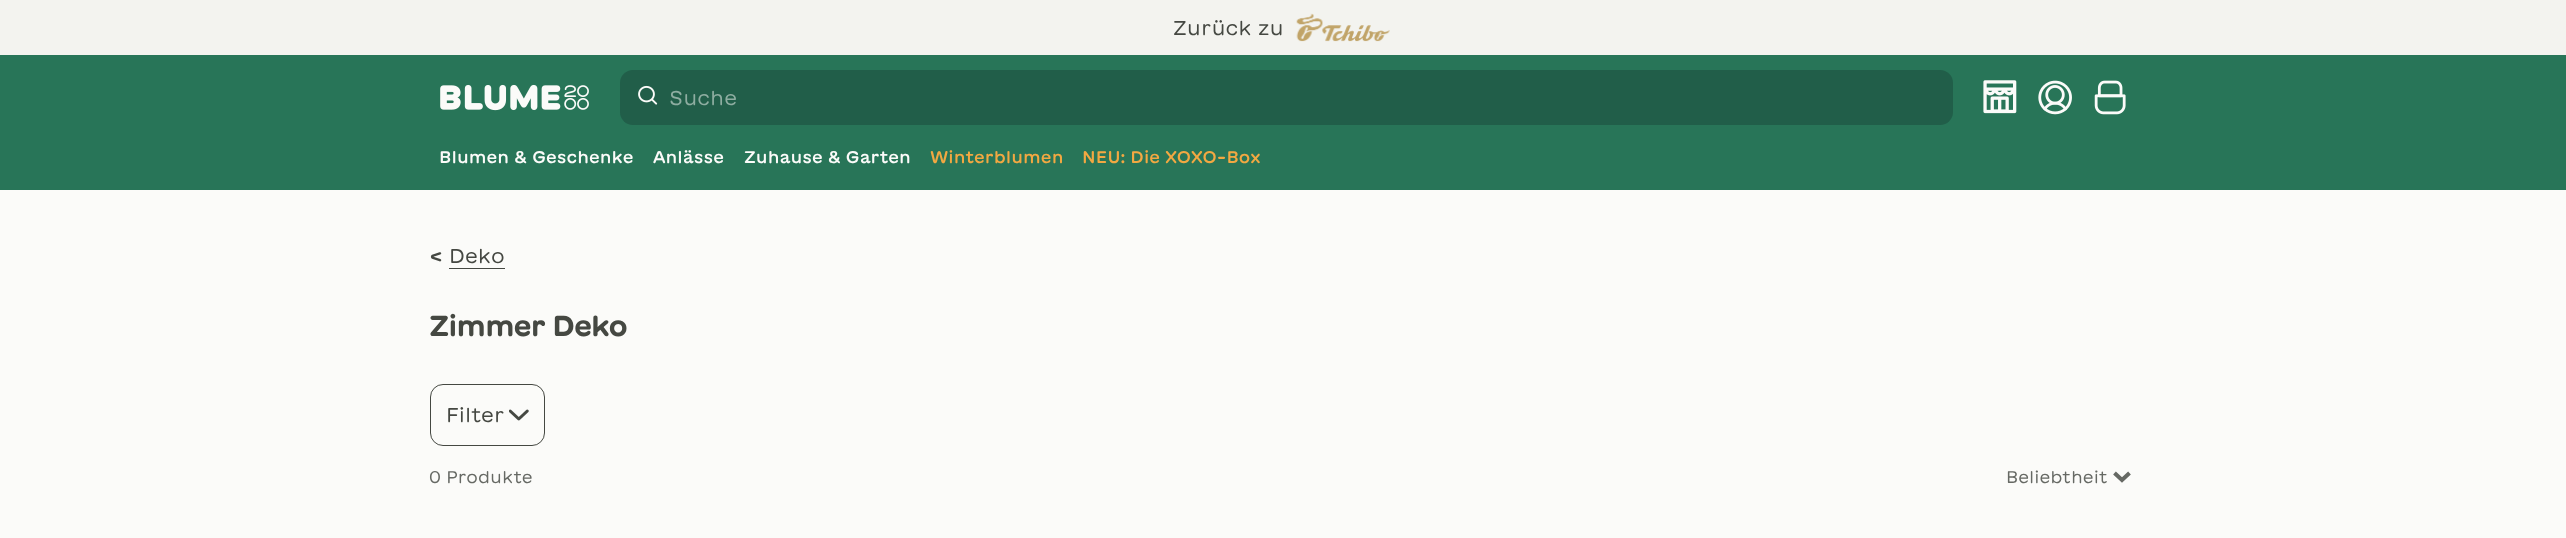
async function draw(canvas) {
  canvas.width = 2566;
  canvas.height = 538;
  const ctx = canvas.getContext('2d');
  ctx.miterLimit = 4;
  ctx.fontKerning = 'normal';
  function label(s, x, y, font, color) {
    ctx.font = font;
    ctx.fillStyle = color;
    ctx.fillText(s, x, y);
  }
  function rect(x, y, w, h, color) {
    ctx.fillStyle = color;
    ctx.fillRect(x, y, w, h);
  }
  function roundedRect(x, y, w, h, r, color) {
    ctx.fillStyle = color;
    ctx.beginPath();
    ctx.roundRect(x, y, w, h, r);
    ctx.fill();
  }
  async function image(src, x, y, w, h) {
    const img = new Image();
    img.src = src;
    await img.decode();
    ctx.drawImage(img, x, y, w, h);
  }
  let path;

  rect(0, 0, 2566, 538, '#fbfbf9');
  rect(0, 0, 2566, 55, '#f3f3ef');
  label('Zurück zu', 1173, 35, '20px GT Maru', '#454842');
  await image('assets/img1.png', 1296, 13, 94, 29);
  rect(0, 55, 2566, 135, '#287558');
  await image('assets/img2.png', 440, 84, 149, 27);
  roundedRect(620, 70, 1333, 55, 13, '#215e49');
  await image('assets/img3.png', 638, 85, 20, 20);
  label('Suche', 669, 105, '20px GT Maru', '#8eada1');
  await image('assets/img4.png', 1983, 80, 34, 34);
  await image('assets/img5.png', 2038, 80, 34, 35);
  await image('assets/img6.png', 2094, 80, 32, 35);
  label('Blumen & Geschenke', 439, 163, '500 16.9px GT Maru', '#fbfbf9');
  label('Anlässe', 653, 163, '500 16.9px GT Maru', '#fbfbf9');
  label('Zuhause & Garten', 744, 163, '500 16.9px GT Maru', '#fbfbf9');
  label('Winterblumen', 930, 163, '500 16.9px GT Maru', '#f2a842');
  label('NEU: Die XOXO-Box', 1082, 163, '500 16.9px GT Maru', '#f2a842');
  label('<', 429, 263, 'bold 20px GT Maru', '#454842');
  label('Deko', 449, 263, '20px GT Maru', '#454842');
  rect(449, 268, 56, 1, '#454842');
  ctx.letterSpacing = '-1.25px';
  label('Zimmer Deko', 429, 336, 'bold 28.75px GT Maru', '#454842');
  ctx.beginPath();
  ctx.roundRect(430.5, 384.5, 114, 61, 12.5);
  ctx.strokeStyle = '#454842';
  ctx.stroke();
  ctx.letterSpacing = '0px';
  label('Filter', 446, 422, '20px GT Maru', '#454842');
  await image('assets/img7.png', 509, 409, 20, 12);
  label('0 Produkte', 429, 483, '16.9px GT Maru', '#666964');
  label('Beliebtheit', 2006, 483, '16.9px GT Maru', '#666964');
  path = new Path2D('M2129.5 473L2122 480L2114.5 473');
  ctx.strokeStyle = '#666964';
  ctx.lineWidth = 4;
  ctx.stroke(path);
}

draw(document.querySelector('canvas'));
